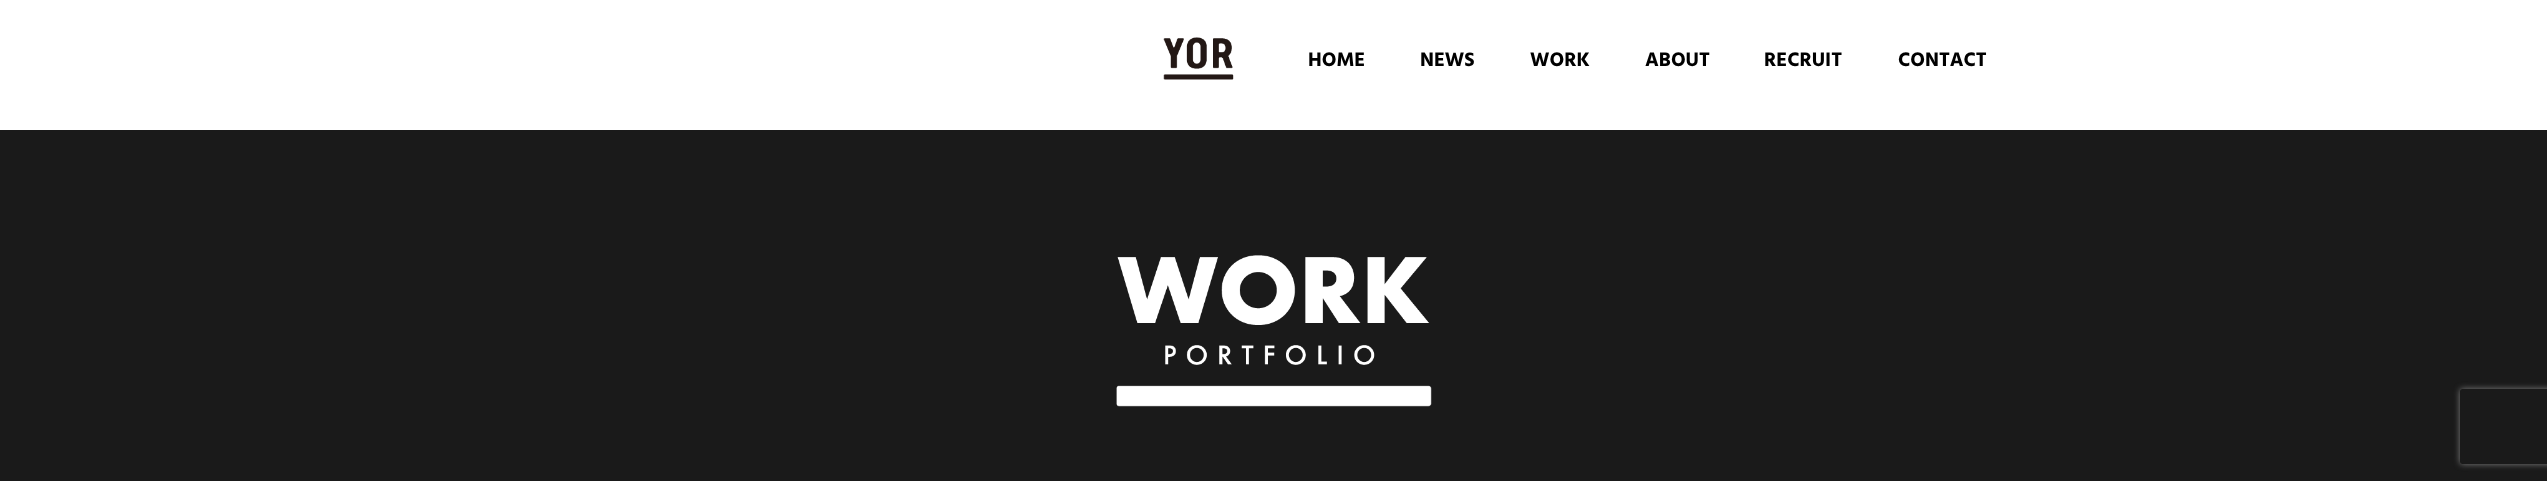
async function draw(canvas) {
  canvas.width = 2547;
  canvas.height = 481;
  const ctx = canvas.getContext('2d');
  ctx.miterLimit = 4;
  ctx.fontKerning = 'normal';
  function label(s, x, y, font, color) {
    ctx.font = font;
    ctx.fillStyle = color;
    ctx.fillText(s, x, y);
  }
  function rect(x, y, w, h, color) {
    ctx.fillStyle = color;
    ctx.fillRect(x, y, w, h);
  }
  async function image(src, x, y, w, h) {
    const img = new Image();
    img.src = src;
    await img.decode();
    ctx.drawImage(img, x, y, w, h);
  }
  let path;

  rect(0, 0, 2547, 481, '#fff');
  await image('assets/img1.png', 1163, 37, 71, 43);
  label('HOME', 1308, 66, 'bold 20px Hind Guntur', '#000');
  label('NEWS', 1420, 66, 'bold 20px Hind Guntur', '#000');
  label('WORK', 1530, 66, 'bold 20px Hind Guntur', '#000');
  label('ABOUT', 1645, 66, 'bold 20px Hind Guntur', '#000');
  label('RECRUIT', 1764, 66, 'bold 20px Hind Guntur', '#000');
  label('CONTACT', 1898, 66, 'bold 20px Hind Guntur', '#000');
  rect(0, 130, 2547, 351, '#1a1a1a');
  await image('assets/img2.png', 1116, 255, 316, 152);
  ctx.save();
  path = new Path2D('M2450 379H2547V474H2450ZM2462.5 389H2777.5C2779 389 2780 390 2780 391.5V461.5C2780 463 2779 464 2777.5 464H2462.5C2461 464 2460 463 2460 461.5V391.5C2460 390 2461 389 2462.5 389Z');
  ctx.clip(path, 'evenodd');
  ctx.fillStyle = '#808080';
  ctx.filter = 'blur(3px)';
  ctx.beginPath();
  ctx.roundRect(2460, 389, 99, 75, 2.5);
  ctx.fill();
  ctx.filter = 'none';
  ctx.restore();
}

draw(document.querySelector('canvas'));
